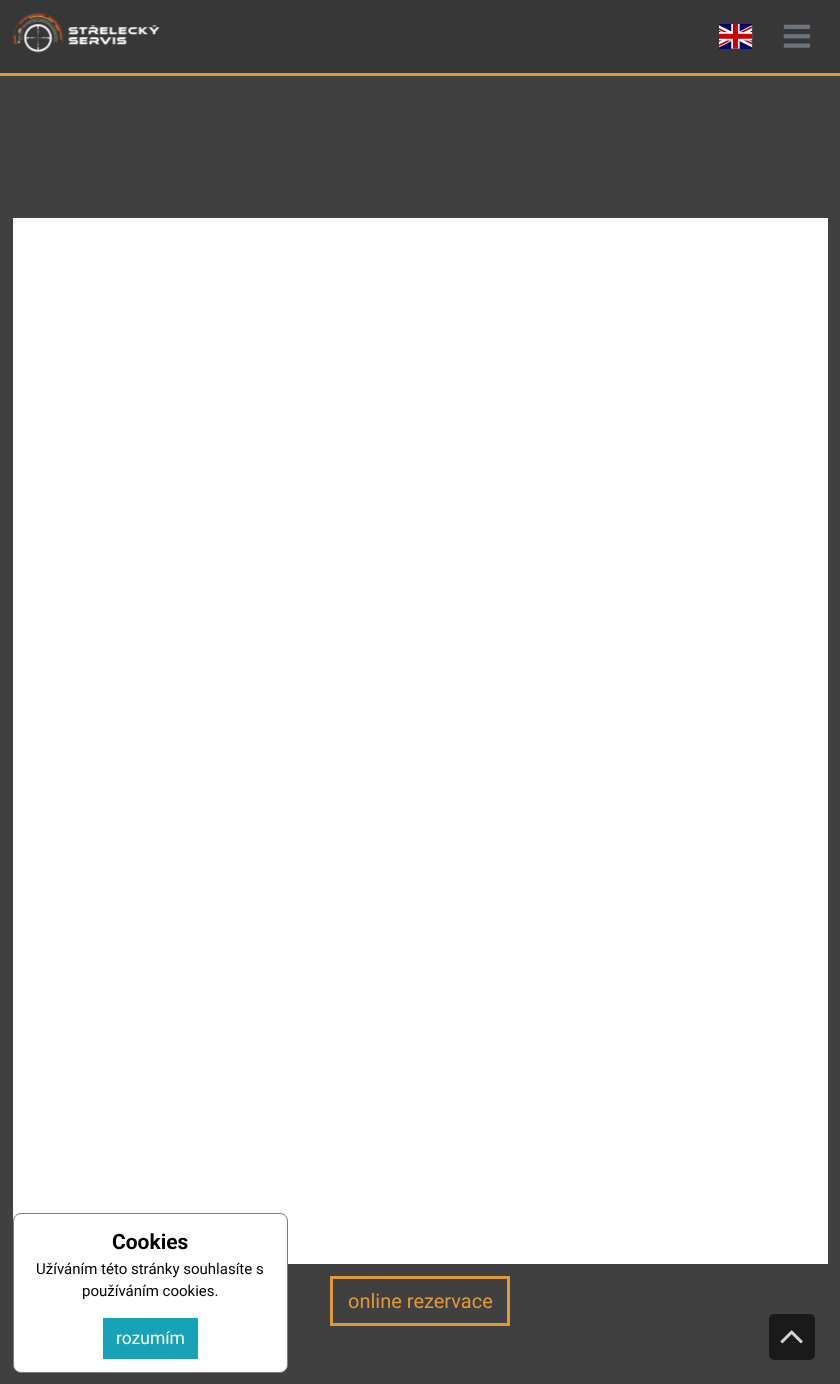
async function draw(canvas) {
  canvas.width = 840;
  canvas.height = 1384;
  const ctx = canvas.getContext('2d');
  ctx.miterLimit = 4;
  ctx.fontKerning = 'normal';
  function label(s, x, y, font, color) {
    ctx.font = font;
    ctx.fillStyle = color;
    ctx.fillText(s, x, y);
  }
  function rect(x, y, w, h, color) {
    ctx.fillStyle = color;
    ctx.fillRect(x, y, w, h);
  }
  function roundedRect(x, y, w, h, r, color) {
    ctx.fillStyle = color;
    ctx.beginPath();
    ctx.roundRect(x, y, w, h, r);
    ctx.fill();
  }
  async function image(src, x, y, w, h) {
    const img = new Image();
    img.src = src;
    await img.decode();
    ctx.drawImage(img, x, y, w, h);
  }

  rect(0, 0, 840, 1384, '#404040');
  rect(0, 0, 840, 73, '#373737');
  rect(0, 73, 840, 3, '#df9a37');
  await image('assets/img1.png', 12, 12, 148, 41);
  await image('assets/img2.png', 719, 24, 34, 25);
  await image('assets/img3.png', 783, 24, 27, 24);
  rect(13, 218, 815, 1046, '#fff');
  ctx.beginPath();
  ctx.roundRect(13.5, 1213.5, 274, 159, 7.5);
  ctx.fill();
  ctx.strokeStyle = '#7c7c7c';
  ctx.stroke();
  label('Cookies', 112, 1249, 'bold 21px Roboto', '#000');
  label('Užíváním této stránky souhlasíte s', 36, 1274, '15px Roboto', '#000');
  label('používáním cookies.', 82, 1296, '15px Roboto', '#000');
  rect(103, 1318, 95, 41, '#17a2b8');
  label('rozumím', 116, 1344, '17.5px Roboto', '#fff');
  roundedRect(769, 1314, 46, 46, 5, '#1a1a1a');
  await image('assets/img4.png', 780, 1330, 23, 14);
  ctx.strokeStyle = '#df9a37';
  ctx.lineWidth = 3;
  ctx.strokeRect(331.5, 1277.5, 177, 47);
  label('online rezervace', 348, 1308, '20px Roboto', '#df9a37');
}

draw(document.querySelector('canvas'));
